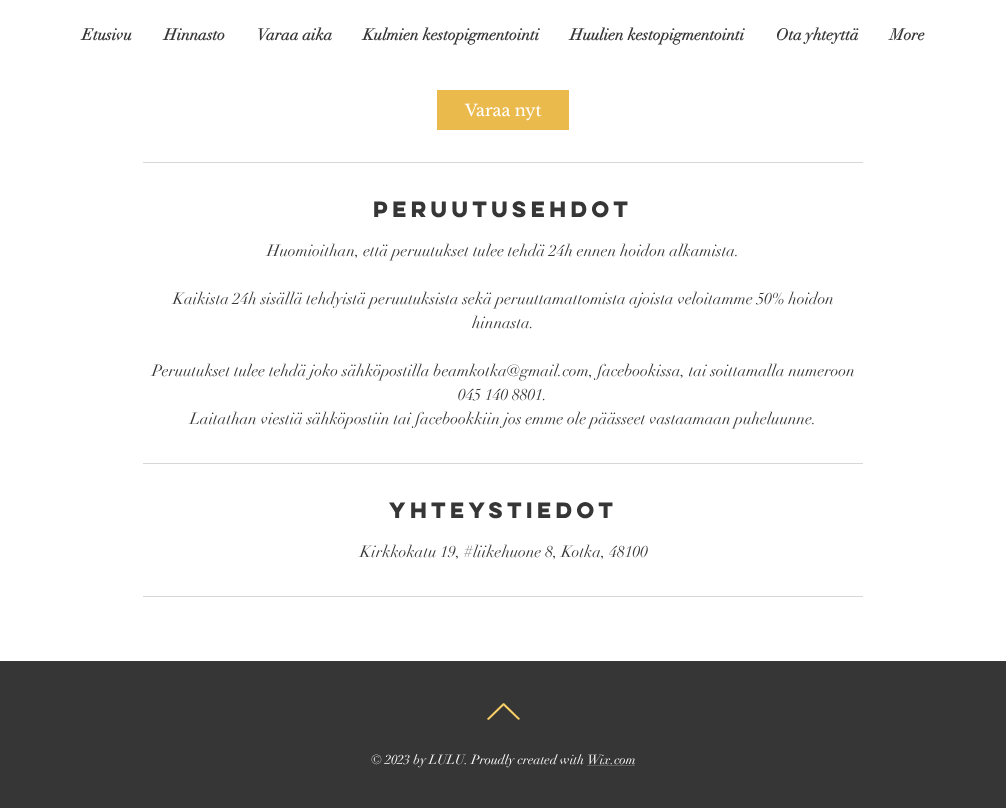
async function draw(canvas) {
  canvas.width = 1006;
  canvas.height = 808;
  const ctx = canvas.getContext('2d');
  ctx.miterLimit = 4;
  ctx.fontKerning = 'normal';
  function label(s, x, y, font, color) {
    ctx.font = font;
    ctx.fillStyle = color;
    ctx.fillText(s, x, y);
  }
  function rect(x, y, w, h, color) {
    ctx.fillStyle = color;
    ctx.fillRect(x, y, w, h);
  }
  async function image(src, x, y, w, h) {
    const img = new Image();
    img.src = src;
    await img.decode();
    ctx.drawImage(img, x, y, w, h);
  }

  rect(0, 0, 1006, 808, '#fff');
  label('Etusivu', 82, 40, 'bold 16px didot', '#363636');
  label('Hinnasto', 164, 40, 'bold 16px didot', '#363636');
  label('Varaa aika', 257, 40, 'bold 16px didot', '#363636');
  label('Kulmien kestopigmentointi', 363, 40, 'bold 16px didot', '#363636');
  label('Huulien kestopigmentointi', 570, 40, 'bold 16px didot', '#363636');
  label('Ota yhteyttä', 776, 40, 'bold 16px didot', '#363636');
  label('More', 890, 40, 'bold 16px didot', '#363636');
  rect(437, 90, 132, 40, '#ebba4d');
  label('Varaa nyt', 465, 116, '16px Libre Baskerville', '#fff');
  rect(143, 162, 720, 1, '#d7d7d7');
  label('Peruutusehdot', 373, 217, 'bold 20px "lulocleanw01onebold"', '#363636');
  label('Huomioithan, että peruutukset tulee tehdä 24h ennen hoidon alkamista.', 267, 256, '16px didot', '#363636');
  label('Kaikista 24h sisällä tehdyistä peruutuksista sekä peruuttamattomista ajoista veloitamme 50% hoidon', 173, 304, '16px didot', '#363636');
  label('hinnasta.', 472, 328, '16px didot', '#363636');
  label('Peruutukset tulee tehdä joko sähköpostilla beamkotka@gmail.com, facebookissa, tai soittamalla numeroon', 152, 376, '16px didot', '#363636');
  label('045 140 8801.', 458, 400, '16px didot', '#363636');
  label('Laitathan viestiä sähköpostiin tai facebookkiin jos emme ole päässeet vastaamaan puheluunne.', 190, 424, '16px didot', '#363636');
  rect(143, 463, 720, 1, '#d7d7d7');
  label('Yhteystiedot', 389, 518, 'bold 20px "lulocleanw01onebold"', '#363636');
  label('Kirkkokatu 19, #liikehuone 8, Kotka, 48100', 360, 557, '16px didot', '#363636');
  rect(143, 596, 720, 1, '#d7d7d7');
  rect(0, 661, 1006, 147, '#363636');
  await image('assets/img1.png', 487, 703, 33, 17);
  label('© 2023 by LULU. Proudly created with Wix.com', 371, 764, '13px didot', '#fff');
  rect(587, 765, 48, 1, '#605e5e');
}

draw(document.querySelector('canvas'));
